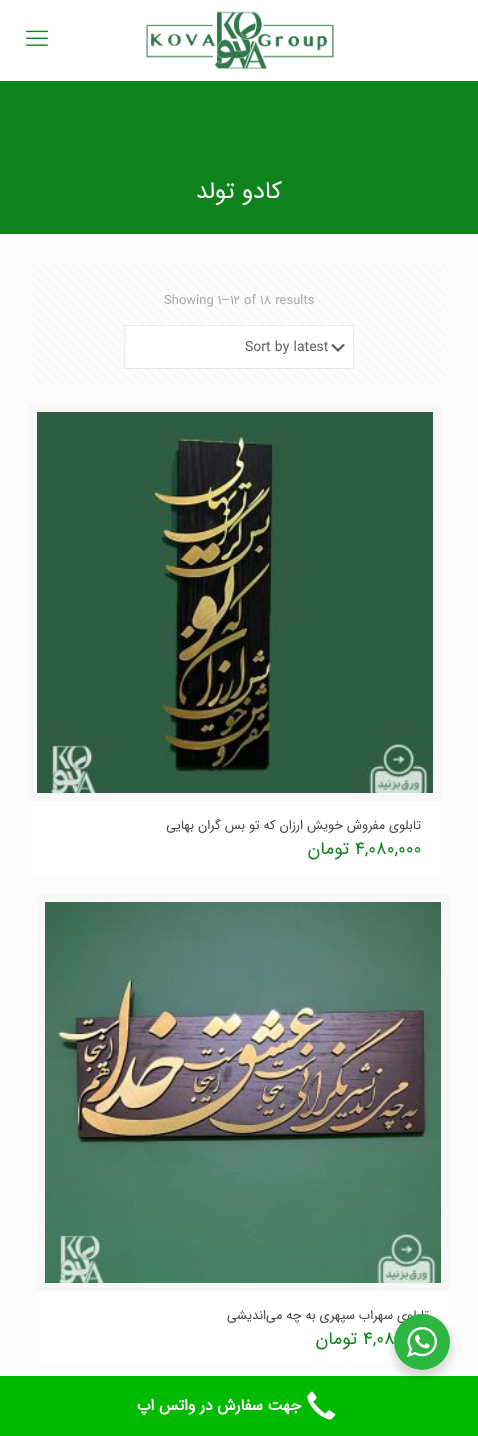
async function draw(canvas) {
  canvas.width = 478;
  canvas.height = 1436;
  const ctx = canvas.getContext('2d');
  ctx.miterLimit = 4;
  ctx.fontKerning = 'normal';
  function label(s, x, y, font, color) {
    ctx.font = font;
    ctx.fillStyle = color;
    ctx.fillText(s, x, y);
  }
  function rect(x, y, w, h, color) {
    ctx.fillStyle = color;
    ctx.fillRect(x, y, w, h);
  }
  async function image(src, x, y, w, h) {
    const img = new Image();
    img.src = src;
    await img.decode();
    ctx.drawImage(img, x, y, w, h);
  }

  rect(0, 0, 478, 1436, '#fcfcfc');
  rect(0, 81, 478, 153, '#0f841d');
  rect(0, 0, 478, 81, '#fff');
  await image('assets/img1.png', 146, 11, 188, 59);
  await image('assets/img2.png', 26, 30, 22, 16);
  ctx.direction = 'rtl';
  label('کادو تولد', 282, 198, '24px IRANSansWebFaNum', '#fff');
  await image('assets/img3.png', 33, 264, 412, 120);
  ctx.direction = 'ltr';
  label('Showing 1–12 of 18 results', 164, 304, '13px IRANSansWebFaNum', '#a8a8a8');
  rect(125, 326, 228, 42, '#fff');
  await image('assets/img4.png', 331, 344, 14, 8);
  ctx.strokeStyle = '#ebebeb';
  ctx.strokeRect(124.5, 325.5, 229, 43);
  label('Sort by latest', 245, 351, '14px IRANSansWebFaNum', '#626262');
  ctx.strokeStyle = '#f8f8f8';
  ctx.lineWidth = 8;
  ctx.strokeRect(33, 408, 404, 389);
  await image('assets/img5.png', 37, 412, 396, 381);
  rect(29, 801, 412, 73, '#fff');
  ctx.direction = 'rtl';
  label('تابلوی مفروش خویش ارزان که تو بس گران بهایی', 421, 829, '13px IRANSansWebFaNum', '#444');
  ctx.direction = 'ltr';
  label('4,080,000', 355, 854, '18px IRANSansWebFaNum', '#0f841d');
  ctx.direction = 'rtl';
  label('تومان', 349, 854, '18px IRANSansWebFaNum', '#0f841d');
  ctx.strokeRect(41, 898, 404, 389);
  await image('assets/img6.png', 45, 902, 396, 381);
  rect(37, 1291, 412, 73, '#fff');
  label('تابلوی سهراب سپهری به چه می‌اندیشی', 429, 1319, '13px IRANSansWebFaNum', '#444');
  ctx.direction = 'ltr';
  label('4,08', 363, 1344, '18px IRANSansWebFaNum', '#0f841d');
  ctx.direction = 'rtl';
  label('تومان', 357, 1344, '18px IRANSansWebFaNum', '#0f841d');
  rect(0, 1376, 478, 60, '#0b0');
  ctx.fillStyle = '#00000024';
  ctx.filter = 'blur(4px)';
  ctx.beginPath();
  ctx.roundRect(392, 1318, 60, 60, 30);
  ctx.fill();
  ctx.filter = 'none';
  ctx.fillStyle = '#2db742';
  ctx.beginPath();
  ctx.arc(422, 1342, 28, 0, 2 * Math.PI);
  ctx.fill();
  await image('assets/img7.png', 407, 1327, 30, 30);
  await image('assets/img8.png', 307, 1391, 29, 30);
  label('جهت سفارش در واتس اپ', 301, 1410, 'bold 15.6px IRANSansWebFaNum', '#fff');
}

draw(document.querySelector('canvas'));
